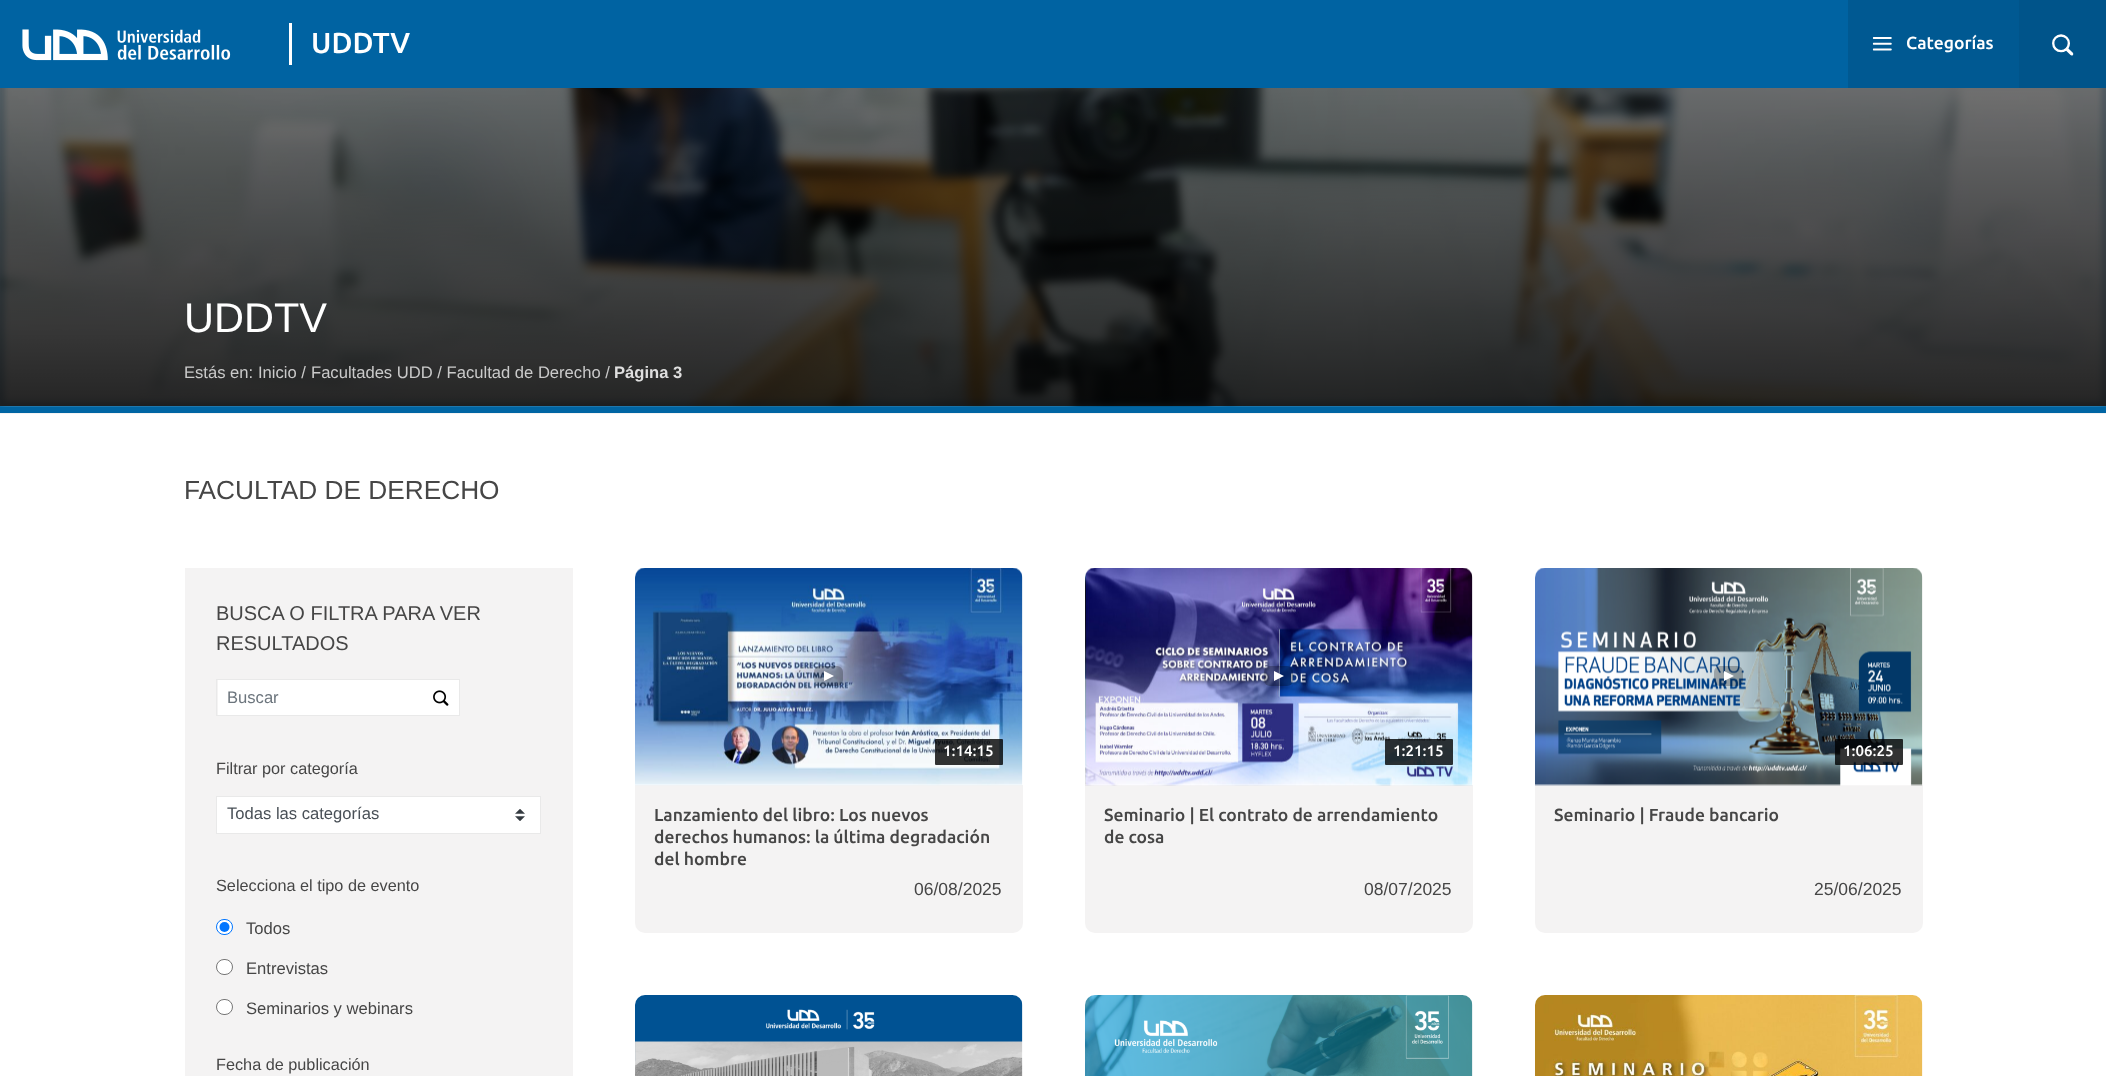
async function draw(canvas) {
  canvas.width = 2106;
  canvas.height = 1076;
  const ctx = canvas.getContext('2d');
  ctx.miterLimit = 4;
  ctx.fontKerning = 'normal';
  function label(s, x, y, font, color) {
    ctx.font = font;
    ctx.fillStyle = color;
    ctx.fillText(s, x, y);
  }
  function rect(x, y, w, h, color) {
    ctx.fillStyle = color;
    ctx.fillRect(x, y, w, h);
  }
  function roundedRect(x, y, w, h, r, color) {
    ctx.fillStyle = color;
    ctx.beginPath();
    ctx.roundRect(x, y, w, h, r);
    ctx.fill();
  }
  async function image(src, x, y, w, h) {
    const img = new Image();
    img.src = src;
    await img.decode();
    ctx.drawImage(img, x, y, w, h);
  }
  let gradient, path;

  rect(0, 0, 2106, 1076, '#fff');
  rect(0, 88, 2106, 318, '#858585');
  rect(0, 406, 2106, 7, '#0065a3');
  ctx.save();
  ctx.beginPath();
  ctx.rect(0, 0, 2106, 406);
  ctx.clip();
  ctx.fillStyle = '#002c48';
  ctx.filter = 'blur(5px)';
  ctx.beginPath();
  ctx.rect(0, 0, 2106, 406);
  ctx.fill();
  ctx.filter = 'none';
  ctx.restore();
  rect(0, 0, 1848, 88, '#0063a2');
  await image('assets/img1.png', 22, 29, 209, 32);
  rect(289, 23, 3, 42, '#fff');
  label('UDDTV', 311, 53, '500 29px Ubuntu', '#fff');
  rect(1848, 0, 171, 88, '#005992');
  await image('assets/img2.png', 1872, 37, 20, 14);
  label('Categorías', 1906, 49, '500 17.5px Ubuntu', '#fff');
  rect(2019, 0, 87, 88, '#00548a');
  await image('assets/img3.png', 2052, 34, 22, 22);
  await image('assets/img4.png', 0, 88, 2106, 319);
  gradient = ctx.createLinearGradient(1053, 406, 1053, 0);
  gradient.addColorStop(0, '#000000b8');
  gradient.addColorStop(1, '#00000000');
  ctx.fillStyle = gradient;
  ctx.fillRect(0, 88, 2106, 318);
  label('UDDTV', 184, 332, '41.5px Liberation Sans', '#fff');
  rect(0, 413, 2106, 1, '#f4f3f3');
  label('Estás en:', 184, 378, '16.6px Liberation Sans', '#cacaca');
  label('Inicio /', 258, 378, '16.6px Liberation Sans', '#cacaca');
  label('Facultades UDD / Facultad de Derecho /', 311, 378, '16.6px Liberation Sans', '#cacaca');
  label('Página 3', 614, 378, 'bold 16.6px Liberation Sans', '#dfdfdf');
  label('FACULTAD DE DERECHO', 184, 499, '26.25px Liberation Sans', '#464646');
  rect(185, 568, 388, 508, '#f4f3f3');
  label('BUSCA O FILTRA PARA VER', 216, 620, '20px Liberation Sans', '#464646');
  label('RESULTADOS', 216, 650, '20px Liberation Sans', '#464646');
  rect(218, 680, 241, 35, '#fff');
  ctx.strokeStyle = '#e9e9e9';
  ctx.strokeRect(216.5, 679.5, 243, 36);
  label('Buscar', 227, 703, '16.6px Liberation Sans', '#6c757d');
  await image('assets/img5.png', 433, 690, 16, 16);
  label('Filtrar por categoría', 216, 774, '16.25px Liberation Sans', '#464646');
  rect(217, 797, 323, 36, '#fff');
  await image('assets/img6.png', 515, 809, 10, 12);
  ctx.strokeRect(216.5, 796.5, 324, 37);
  label('Todas las categorías', 227, 819, '16.6px Liberation Sans', '#495057');
  label('Selecciona el tipo de evento', 216, 891, '16.25px Liberation Sans', '#464646');
  ctx.fillStyle = '#fff';
  ctx.beginPath();
  ctx.roundRect(216.5, 919.5, 16, 15, 7.5);
  ctx.fill();
  ctx.strokeStyle = '#0075ff';
  ctx.stroke();
  ctx.fillStyle = '#0075ff';
  ctx.beginPath();
  ctx.arc(224.5, 927, 5, 0, 2 * Math.PI);
  ctx.fill();
  label('Todos', 246, 934, '16.6px Liberation Sans', '#464646');
  ctx.fillStyle = '#fff';
  ctx.beginPath();
  ctx.roundRect(216.5, 959.5, 16, 15, 7.5);
  ctx.fill();
  ctx.strokeStyle = '#767676';
  ctx.stroke();
  label('Entrevistas', 246, 974, '16.6px Liberation Sans', '#464646');
  ctx.fillStyle = '#fff';
  ctx.beginPath();
  ctx.roundRect(216.5, 999.5, 16, 15, 7.5);
  ctx.fill();
  ctx.stroke();
  label('Seminarios y webinars', 246, 1014, '16.6px Liberation Sans', '#464646');
  label('Fecha de publicación', 216, 1070, '16.25px Liberation Sans', '#464646');
  ctx.fillStyle = '#f4f3f3';
  ctx.beginPath();
  ctx.roundRect(635, 785, 388, 148, [0, 0, 10, 10]);
  ctx.fill();
  await image('assets/img7.png', 635, 568, 388, 218);
  roundedRect(814, 666, 29, 20, 6, '#00000040');
  ctx.fillStyle = '#fff';
  path = new Path2D('M824 681V671L834 676Z');
  ctx.fill(path);
  roundedRect(935, 739, 68, 26, 1, '#000000cc');
  label('1:14:15', 943, 756, '500 15px Ubuntu', '#fff');
  label('Lanzamiento del libro: Los nuevos', 654, 821, '500 17.5px Ubuntu', '#464646');
  label('derechos humanos: la última degradación', 654, 843, '500 17.5px Ubuntu', '#464646');
  label('del hombre', 654, 865, '500 17.5px Ubuntu', '#464646');
  label('06/08/2025', 914, 895, '17.5px Liberation Sans', '#464646');
  ctx.fillStyle = '#f4f3f3';
  ctx.beginPath();
  ctx.roundRect(1085, 785, 388, 148, [0, 0, 10, 10]);
  ctx.fill();
  await image('assets/img8.png', 1085, 568, 388, 218);
  roundedRect(1264, 666, 29, 20, 6, '#00000040');
  ctx.fillStyle = '#fff';
  path = new Path2D('M1274 681V671L1284 676Z');
  ctx.fill(path);
  roundedRect(1385, 739, 68, 26, 1, '#000000cc');
  label('1:21:15', 1393, 756, '500 15px Ubuntu', '#fff');
  label('Seminario | El contrato de arrendamiento', 1104, 821, '500 17.5px Ubuntu', '#464646');
  label('de cosa', 1104, 843, '500 17.5px Ubuntu', '#464646');
  label('08/07/2025', 1364, 895, '17.5px Liberation Sans', '#464646');
  ctx.fillStyle = '#f4f3f3';
  ctx.beginPath();
  ctx.roundRect(1535, 785, 388, 148, [0, 0, 10, 10]);
  ctx.fill();
  await image('assets/img9.png', 1535, 568, 388, 218);
  roundedRect(1714, 666, 29, 20, 6, '#00000040');
  ctx.fillStyle = '#fff';
  path = new Path2D('M1724 681V671L1734 676Z');
  ctx.fill(path);
  roundedRect(1835, 739, 68, 26, 1, '#000000cc');
  label('1:06:25', 1843, 756, '500 15px Ubuntu', '#fff');
  label('Seminario | Fraude bancario', 1554, 821, '500 17.5px Ubuntu', '#464646');
  label('25/06/2025', 1814, 895, '17.5px Liberation Sans', '#464646');
  await image('assets/img10.png', 635, 995, 388, 81);
  await image('assets/img11.png', 1085, 995, 388, 81);
  await image('assets/img12.png', 1535, 995, 388, 81);
}

draw(document.querySelector('canvas'));
